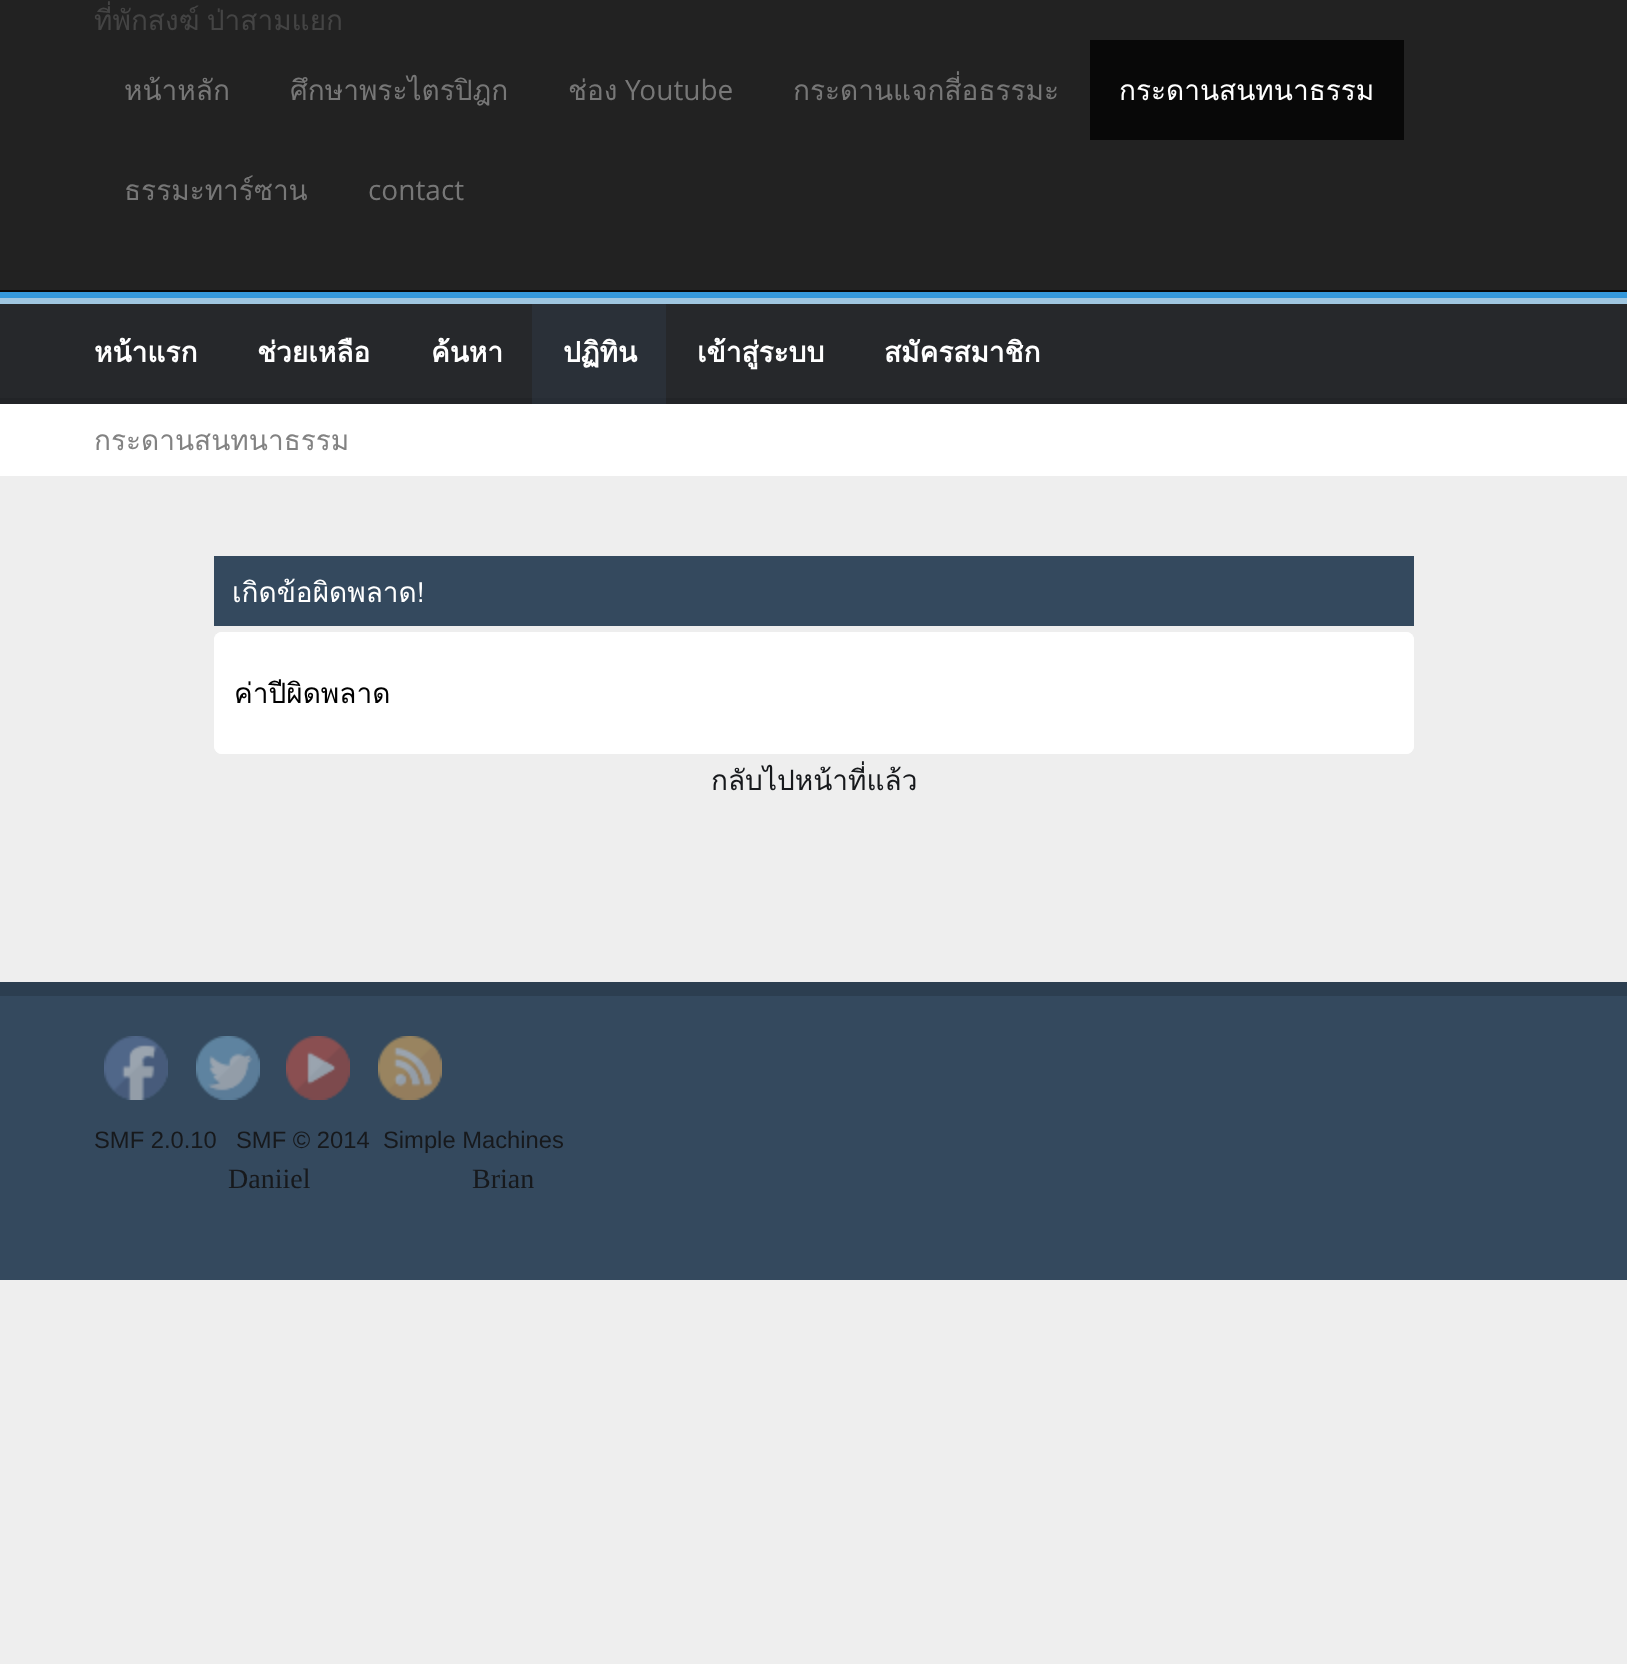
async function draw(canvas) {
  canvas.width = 1627;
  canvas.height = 1664;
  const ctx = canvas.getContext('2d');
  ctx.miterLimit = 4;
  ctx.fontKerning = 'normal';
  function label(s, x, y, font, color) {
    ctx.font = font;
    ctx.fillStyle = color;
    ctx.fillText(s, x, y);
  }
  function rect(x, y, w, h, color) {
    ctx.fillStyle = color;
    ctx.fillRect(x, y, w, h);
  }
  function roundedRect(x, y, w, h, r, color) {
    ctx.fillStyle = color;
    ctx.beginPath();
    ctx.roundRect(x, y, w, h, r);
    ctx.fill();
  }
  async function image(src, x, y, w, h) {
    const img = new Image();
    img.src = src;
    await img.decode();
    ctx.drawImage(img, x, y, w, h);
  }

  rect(0, 0, 1627, 1664, '#eee');
  rect(0, 0, 1627, 290, '#222');
  rect(0, 290, 1627, 2, '#080808');
  ctx.wordSpacing = '-2px';
  label('ที่พักสงฆ์ ป่าสามแยก', 94, 30, '28px Loma', '#444');
  ctx.wordSpacing = '0px';
  label('หน้าหลัก', 124, 100, '28px Loma', '#777');
  label('ศึกษาพระไตรปิฎก', 290, 100, '28px Loma', '#777');
  label('ช่อง', 568, 100, '28px Loma', '#777');
  label('Youtube', 625, 100, '28px Open Sans', '#777');
  label('กระดานแจกสี่อธรรมะ', 793, 100, '28px Loma', '#777');
  rect(1090, 40, 314, 100, '#080808');
  label('กระดานสนทนาธรรม', 1119, 100, '28px Loma', '#fff');
  label('ธรรมะทาร์ซาน', 124, 200, '28px Loma', '#777');
  label('contact', 368, 200, '28px Open Sans', '#777');
  rect(0, 292, 1627, 6, '#3498db');
  rect(0, 298, 1627, 6, '#9fc6e0');
  rect(0, 304, 1627, 94, '#26282b');
  rect(0, 398, 1627, 6, '#222427');
  label('หน้าแรก', 94, 362, 'bold 28px Loma', '#fff');
  label('ช่วยเหลือ', 257, 362, 'bold 28px Loma', '#fff');
  label('ค้นหา', 431, 362, 'bold 28px Loma', '#fff');
  rect(532, 304, 134, 94, '#2a3038');
  rect(532, 398, 134, 6, '#272d35');
  label('ปฏิทิน', 563, 362, 'bold 28px Loma', '#fff');
  label('เข้าสู่ระบบ', 697, 362, 'bold 28px Loma', '#fff');
  label('สมัครสมาชิก', 884, 362, 'bold 28px Loma', '#fff');
  rect(0, 404, 1627, 72, '#fff');
  label('กระดานสนทนาธรรม', 94, 450, '28px Loma', '#828282');
  rect(214, 556, 1200, 70, '#34495e');
  ctx.save();
  ctx.beginPath();
  ctx.rect(232, 556, 1182, 70);
  ctx.clip();
  label('เกิดข้อผิดพลาด!', 232, 602, '28px Loma', '#fff');
  ctx.restore();
  roundedRect(214, 632, 1200, 122, 8, '#fff');
  ctx.beginPath();
  ctx.roundRect(214, 632, 1200, 22, [8, 8, 0, 0]);
  ctx.fill();
  label('ค่าปีผิดพลาด', 234, 703, '28px Loma', '#000');
  ctx.fillStyle = '#fff';
  ctx.beginPath();
  ctx.roundRect(214, 732, 1200, 22, [0, 0, 8, 8]);
  ctx.fill();
  label('กลับไปหน้าที่แล้ว', 711, 790, '28px Loma', '#17191c');
  rect(0, 982, 1627, 14, '#2c3e50');
  rect(0, 996, 1627, 284, '#34495e');
  await image('assets/img1.png', 104, 1036, 64, 64);
  await image('assets/img2.png', 196, 1036, 64, 64);
  await image('assets/img3.png', 286, 1036, 64, 64);
  await image('assets/img4.png', 378, 1036, 64, 64);
  label('SMF 2.0.10', 94, 1148, '23.75px Liberation Sans', '#17191c');
  label('SMF © 2014', 236, 1148, '23.75px Liberation Sans', '#17191c');
  label('Simple Machines', 383, 1148, '23.75px Liberation Sans', '#17191c');
  label('Daniiel', 228, 1188, '28px Liberation Serif', '#17191c');
  label('Brian', 472, 1188, '28px Liberation Serif', '#17191c');
}

draw(document.querySelector('canvas'));
